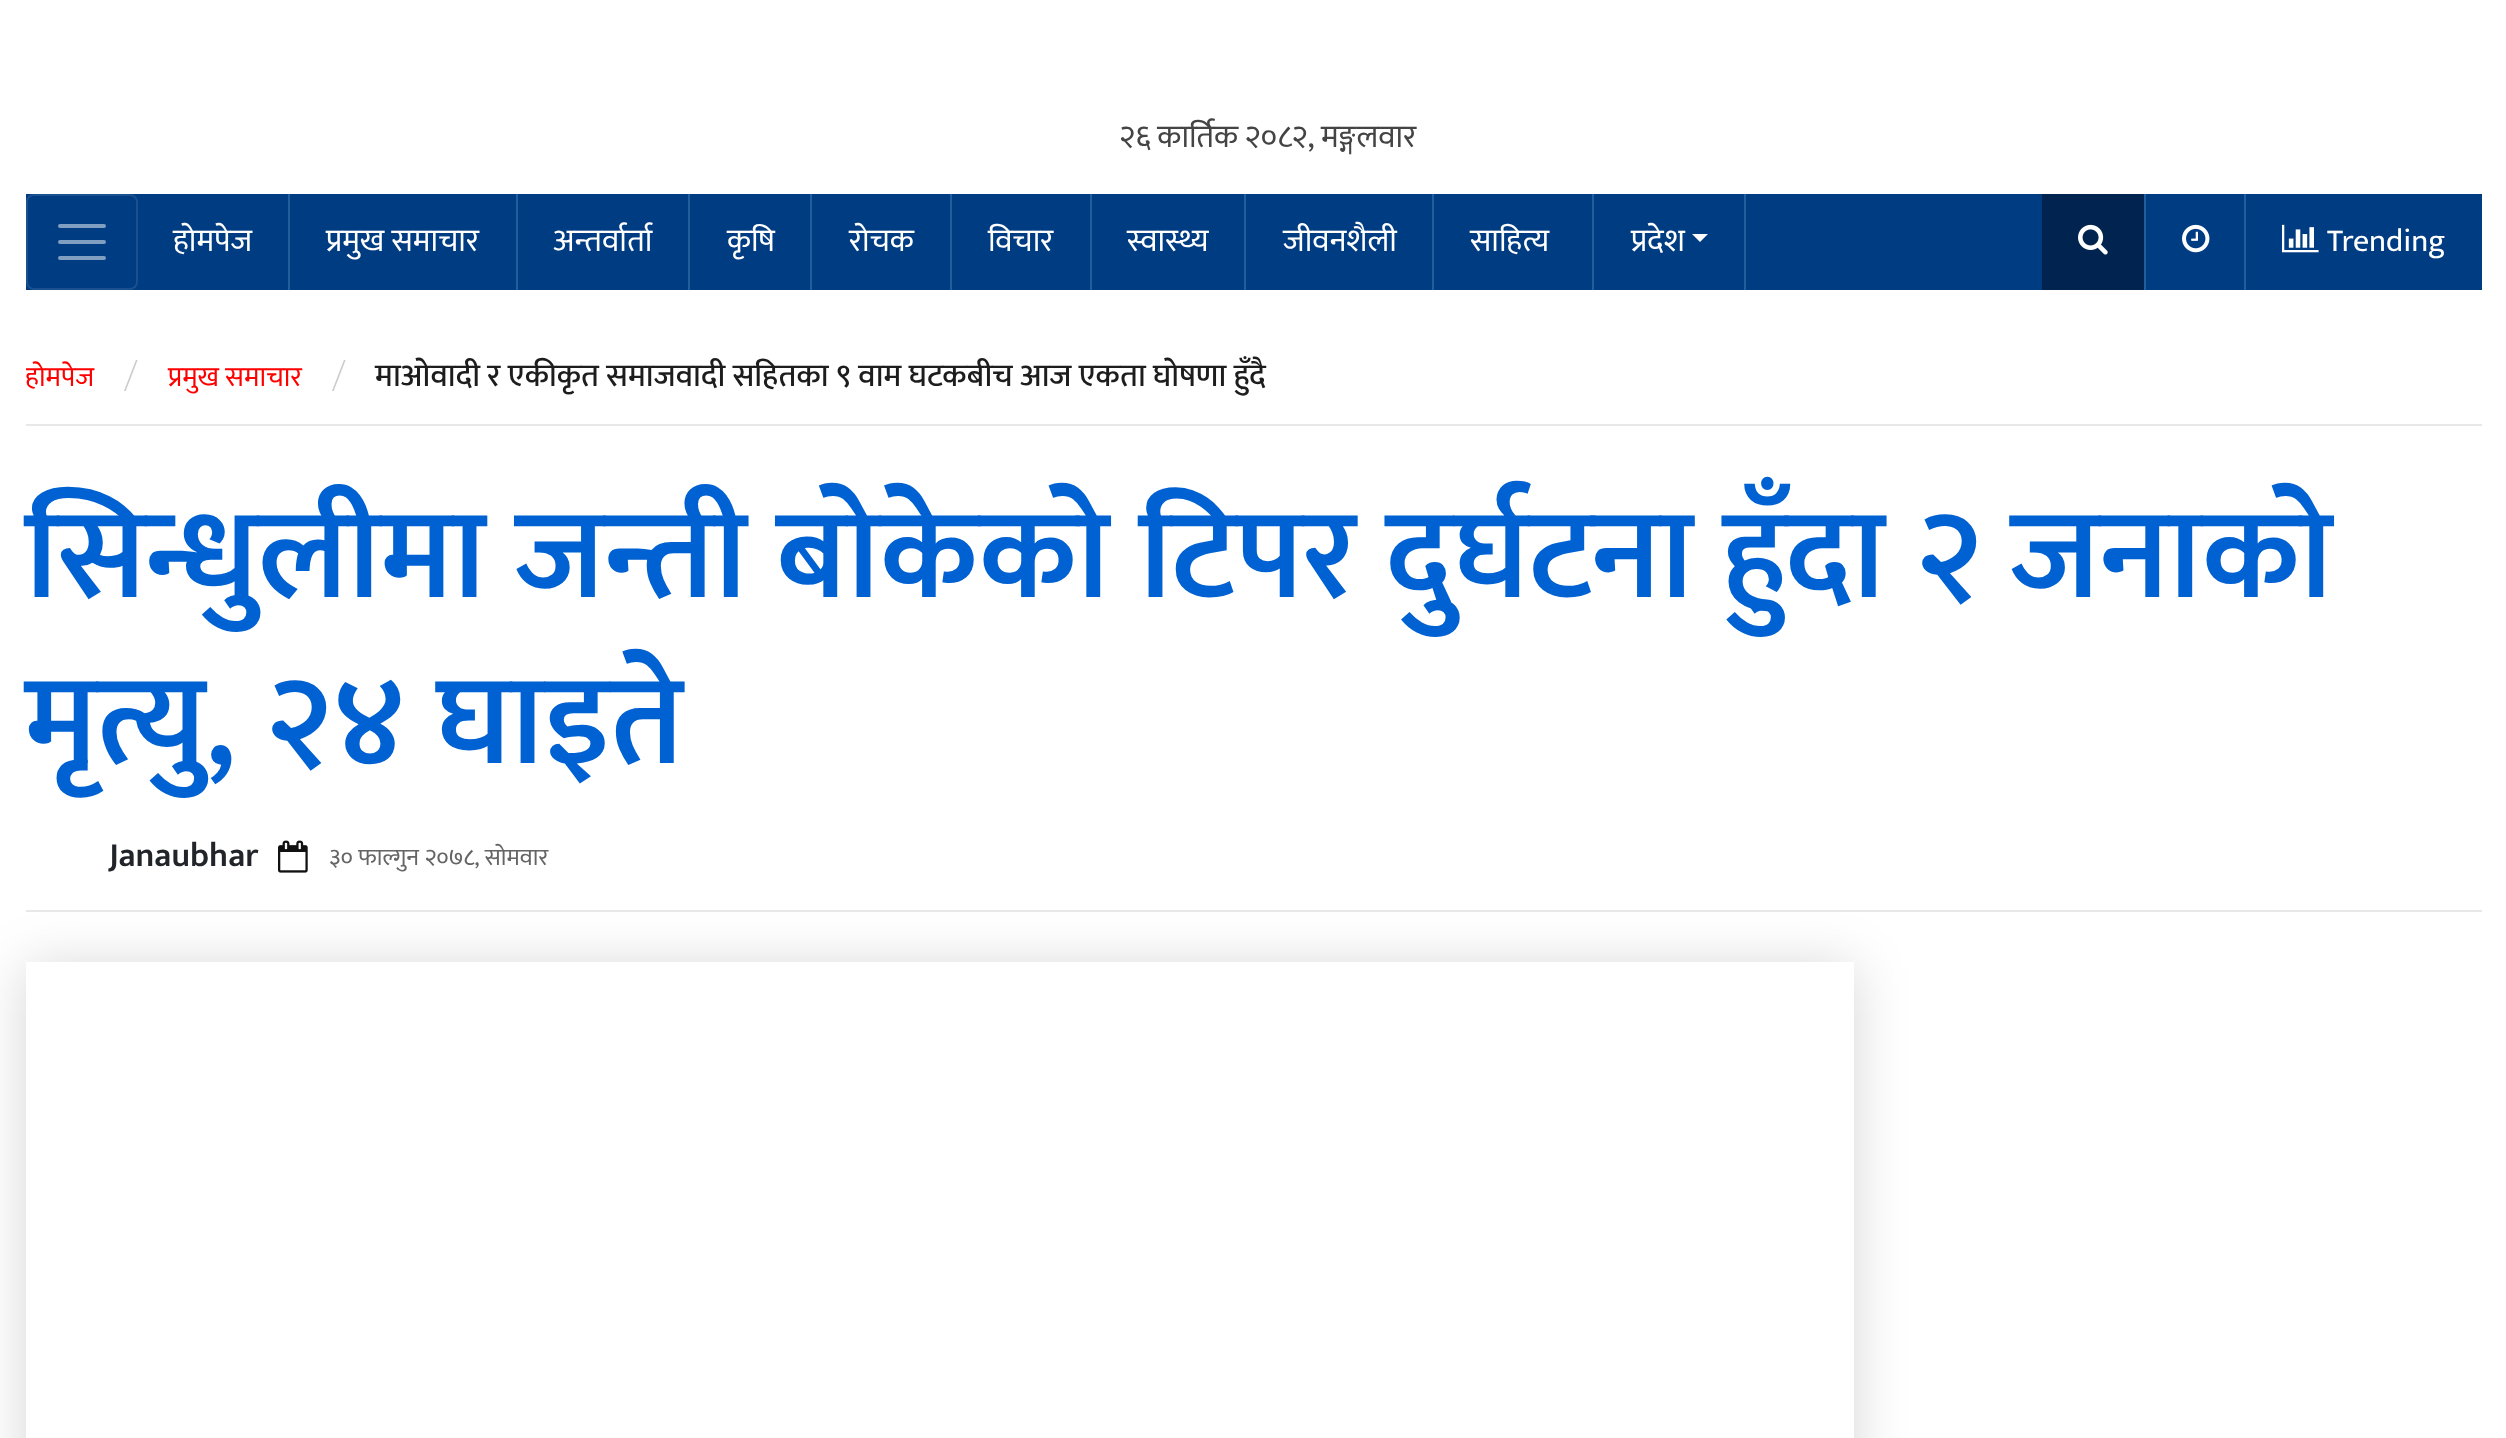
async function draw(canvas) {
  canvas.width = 2506;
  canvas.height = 1438;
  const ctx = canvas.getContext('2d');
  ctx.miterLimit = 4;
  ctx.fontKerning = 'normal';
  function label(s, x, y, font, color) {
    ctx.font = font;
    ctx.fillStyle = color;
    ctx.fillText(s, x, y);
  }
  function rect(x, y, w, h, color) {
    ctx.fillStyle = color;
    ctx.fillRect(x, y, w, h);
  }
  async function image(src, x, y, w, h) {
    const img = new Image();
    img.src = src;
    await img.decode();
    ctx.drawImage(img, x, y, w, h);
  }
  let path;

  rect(0, 0, 2506, 1438, '#fff');
  ctx.wordSpacing = '-0.5px';
  label('२६ कार्तिक २०८२, मङ्गलवार', 1119, 147, '32px Mukta', '#444');
  rect(26, 194, 2456, 96, '#003c82');
  ctx.beginPath();
  ctx.roundRect(27, 195, 110, 94, 7);
  ctx.strokeStyle = '#1a508f';
  ctx.lineWidth = 2;
  ctx.stroke();
  path = new Path2D('M60 226H104M60 242H104M60 258H104');
  ctx.strokeStyle = '#809ec1';
  ctx.lineWidth = 4;
  ctx.lineCap = 'round';
  ctx.stroke(path);
  rect(288, 194, 2, 96, '#1f5f9e');
  ctx.wordSpacing = '0px';
  label('होमपेज', 173, 251, '32px Mukta', '#fff');
  rect(516, 194, 2, 96, '#1f5f9e');
  label('प्रमुख समाचार', 326, 251, '32px Mukta', '#fff');
  rect(688, 194, 2, 96, '#1f5f9e');
  label('अन्तर्वार्ता', 553, 251, '32px Mukta', '#fff');
  rect(810, 194, 2, 96, '#1f5f9e');
  label('कृषि', 727, 251, '32px Mukta', '#fff');
  rect(950, 194, 2, 96, '#1f5f9e');
  label('रोचक', 849, 251, '32px Mukta', '#fff');
  rect(1090, 194, 2, 96, '#1f5f9e');
  label('विचार', 988, 251, '32px Mukta', '#fff');
  rect(1244, 194, 2, 96, '#1f5f9e');
  label('स्वास्थ्य', 1127, 251, '32px Mukta', '#fff');
  rect(1432, 194, 2, 96, '#1f5f9e');
  label('जीवनशैली', 1283, 251, '32px Mukta', '#fff');
  rect(1592, 194, 2, 96, '#1f5f9e');
  label('साहित्य', 1470, 251, '32px Mukta', '#fff');
  rect(1744, 194, 2, 96, '#1f5f9e');
  label('प्रदेश', 1631, 251, '32px Mukta', '#fff');
  path = new Path2D('M1692 234H1708L1700 242Z');
  ctx.fill(path);
  rect(2042, 194, 102, 96, '#00244f');
  rect(2144, 194, 2, 96, '#1f5f9e');
  await image('assets/img1.png', 2078, 224, 30, 31);
  rect(2244, 194, 2, 96, '#1f5f9e');
  await image('assets/img2.png', 2182, 224, 28, 29);
  await image('assets/img3.png', 2282, 224, 37, 29);
  label('Trending', 2327, 251, '32px Mukta', '#fff');
  rect(26, 424, 2456, 2, '#e8e8e8');
  ctx.save();
  ctx.beginPath();
  ctx.rect(26, 350, 2456, 54);
  ctx.clip();
  label('होमपेज', 25, 386, '28px Mukta', '#f00');
  ctx.restore();
  label('/', 124, 387, '200 36px Mukta', '#ccc');
  label('प्रमुख समाचार', 168, 386, '28px Mukta', '#f00');
  label('/', 332, 387, '200 36px Mukta', '#ccc');
  label('माओवादी र एकीकृत समाजवादी सहितका ९ वाम घटकबीच आज एकता घोषणा हुँदै', 375, 386, '500 32px Mukta', '#1d1d1d');
  label('सिन्धुलीमा जन्ती बोकेको टिपर दुर्घटना हुँदा २ जनाको', 25, 597, '600 128px Mukta', '#0061d2');
  label('मृत्यु, २४ घाइते', 25, 763, '600 128px Mukta', '#0061d2');
  rect(26, 910, 2456, 2, '#e8e8e8');
  label('Janaubhar', 109, 866, '600 34px Mukta', '#212529');
  await image('assets/img4.png', 278, 840, 30, 33);
  label('३० फाल्गुन २०७८, सोमवार', 329, 865, '24px Mukta', '#656565');
  ctx.save();
  path = new Path2D('M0 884H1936V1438H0ZM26 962H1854V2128H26Z');
  ctx.clip(path, 'evenodd');
  ctx.fillStyle = '#00000029';
  ctx.filter = 'blur(27px)';
  ctx.beginPath();
  ctx.rect(26, 966, 1828, 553);
  ctx.fill();
  ctx.filter = 'none';
  ctx.restore();
}

draw(document.querySelector('canvas'));
